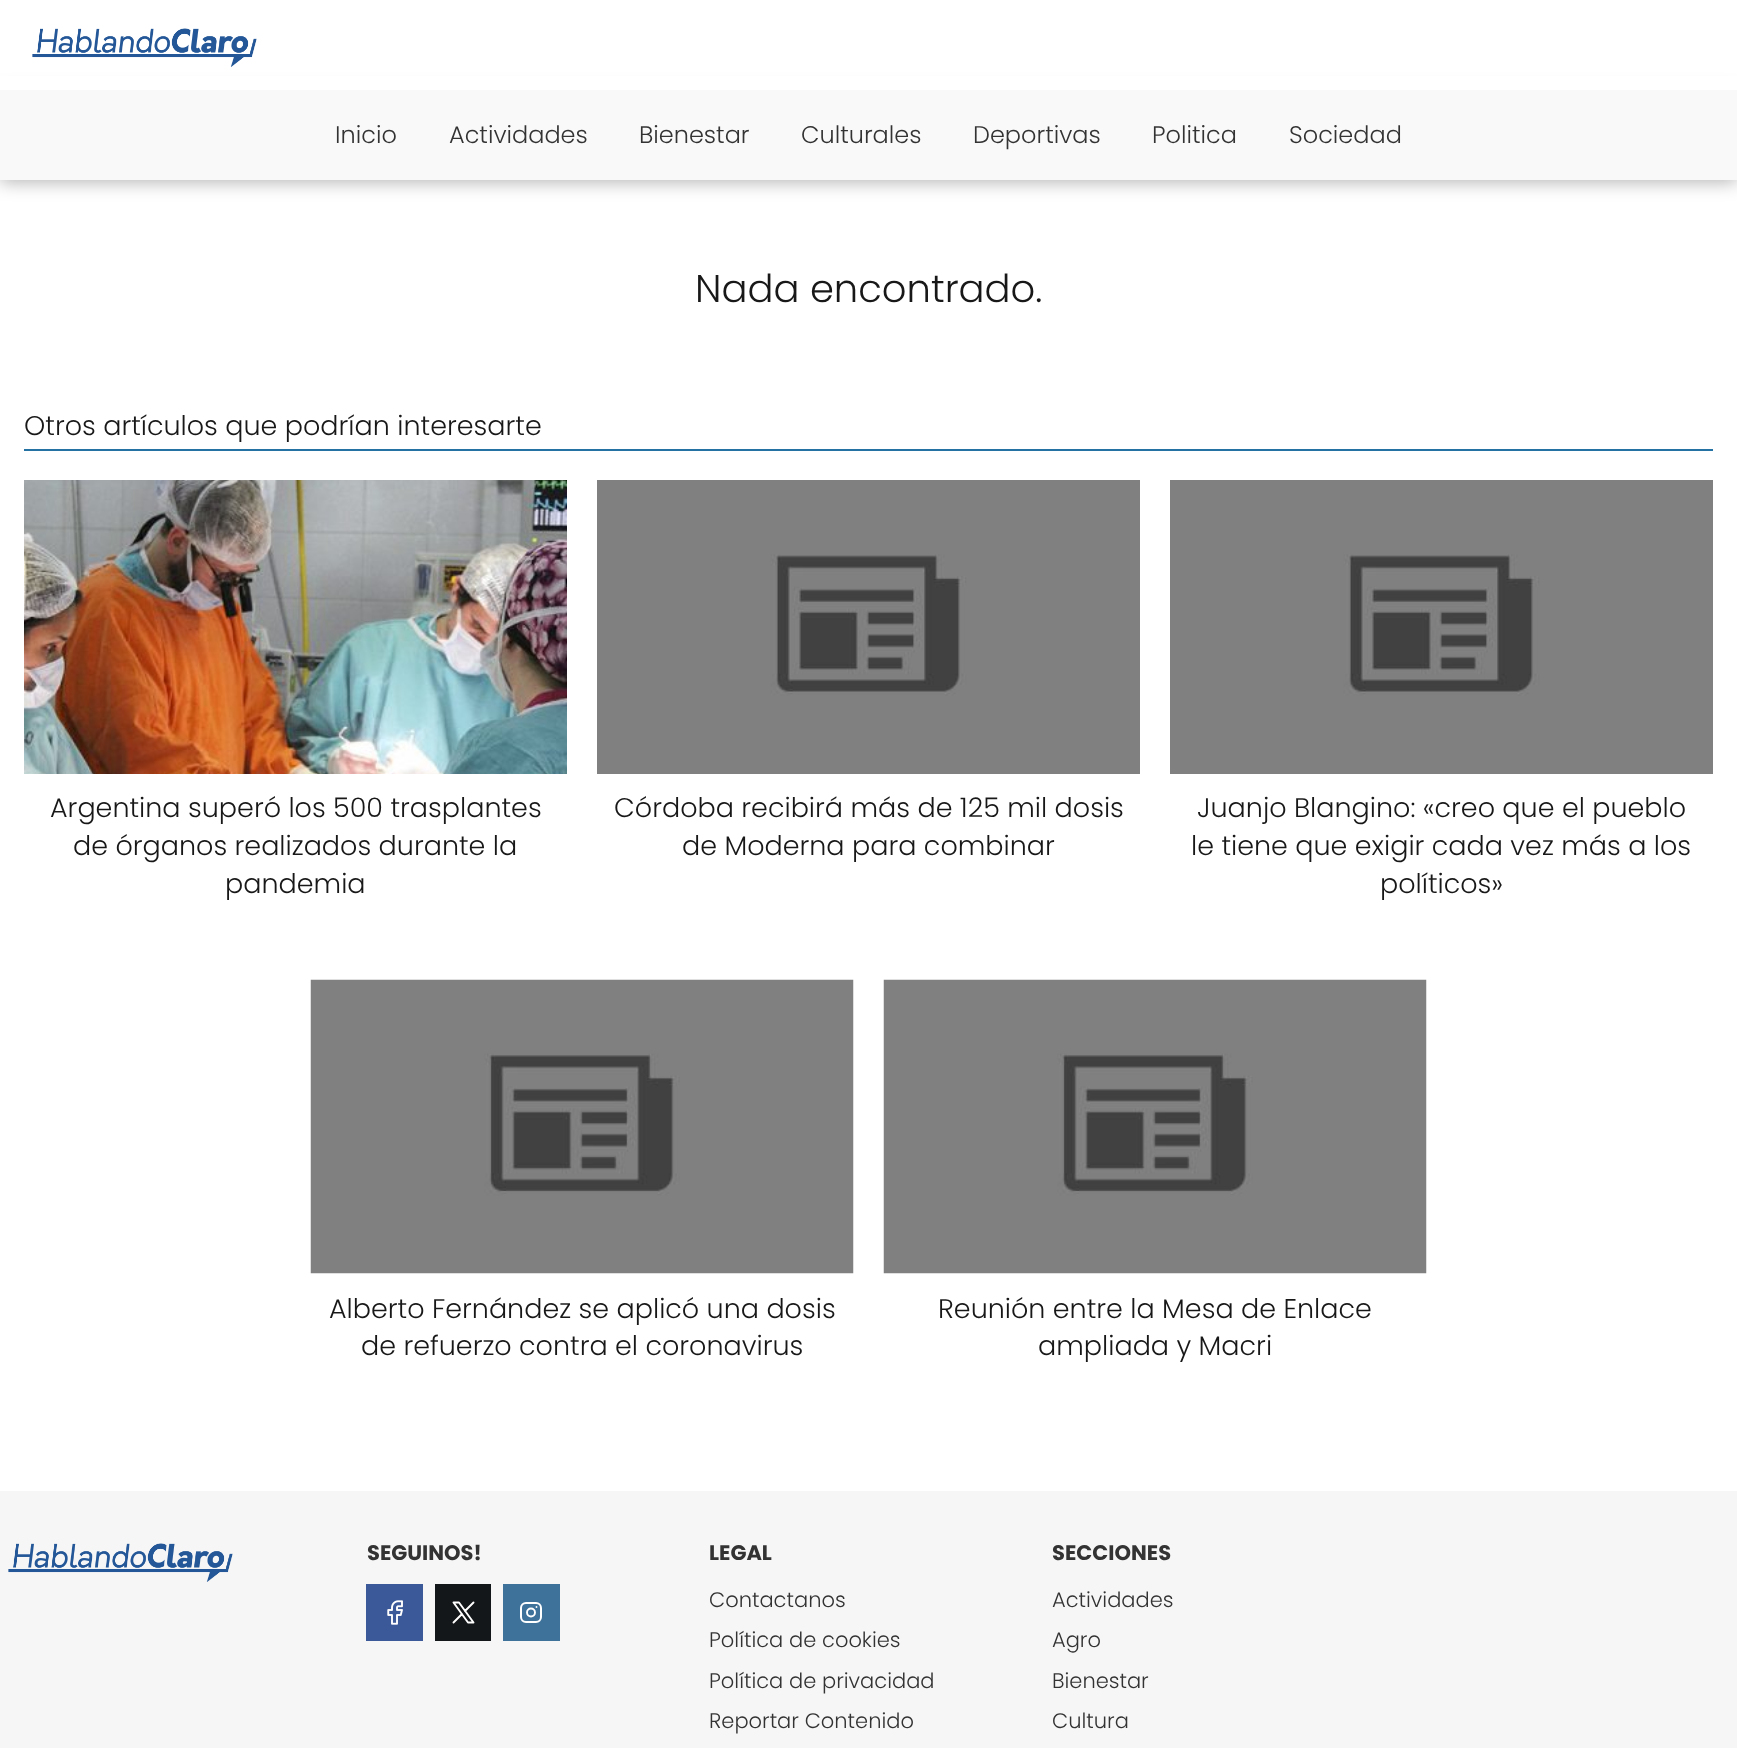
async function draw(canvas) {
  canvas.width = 1737;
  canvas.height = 1748;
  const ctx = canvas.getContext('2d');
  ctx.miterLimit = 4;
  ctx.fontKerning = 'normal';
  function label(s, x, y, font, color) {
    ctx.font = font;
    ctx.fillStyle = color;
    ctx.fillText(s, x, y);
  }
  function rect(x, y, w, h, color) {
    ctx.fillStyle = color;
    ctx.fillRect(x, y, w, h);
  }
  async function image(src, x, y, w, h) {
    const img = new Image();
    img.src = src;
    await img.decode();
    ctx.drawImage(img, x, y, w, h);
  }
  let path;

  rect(0, 0, 1737, 1748, '#fff');
  ctx.fillStyle = '#0000004d';
  ctx.filter = 'blur(9px)';
  ctx.beginPath();
  ctx.rect(0, 92, 1737, 90);
  ctx.fill();
  ctx.filter = 'none';
  rect(0, 76, 1737, 14, '#fff');
  await image('assets/img1.png', 32, 28, 225, 39);
  rect(0, 90, 1737, 90, '#f9f9f9');
  label('Inicio', 335, 143, '300 24px Poppins', '#333');
  label('Actividades', 449, 143, '300 24px Poppins', '#333');
  label('Bienestar', 639, 143, '300 24px Poppins', '#333');
  label('Culturales', 801, 143, '300 24px Poppins', '#333');
  label('Deportivas', 973, 143, '300 24px Poppins', '#333');
  label('Politica', 1152, 143, '300 24px Poppins', '#333');
  label('Sociedad', 1289, 143, '300 24px Poppins', '#333');
  label('Nada encontrado.', 695, 302, '300 38.5px Poppins', '#181818');
  rect(24, 449, 1689, 2, '#2471a3');
  label('Otros artículos que podrían interesarte', 24, 435, '300 27px Poppins', '#181818');
  await image('assets/img2.png', 24, 480, 543, 294);
  label('Argentina superó los 500 trasplantes', 50, 817, '300 27px Poppins', '#181818');
  label('de órganos realizados durante la', 73, 855, '300 27px Poppins', '#181818');
  label('pandemia', 225, 893, '300 27px Poppins', '#181818');
  await image('assets/img3.png', 597, 480, 543, 294);
  label('Córdoba recibirá más de 125 mil dosis', 614, 817, '300 27px Poppins', '#181818');
  label('de Moderna para combinar', 682, 855, '300 27px Poppins', '#181818');
  await image('assets/img3.png', 1170, 480, 543, 294);
  label('Juanjo Blangino: «creo que el pueblo', 1197, 817, '300 27px Poppins', '#181818');
  label('le tiene que exigir cada vez más a los', 1191, 855, '300 27px Poppins', '#181818');
  label('políticos»', 1380, 893, '300 27px Poppins', '#181818');
  await image('assets/img4.png', 310, 979, 544, 295);
  label('Alberto Fernández se aplicó una dosis', 329, 1318, '300 27px Poppins', '#181818');
  label('de refuerzo contra el coronavirus', 361, 1355, '300 27px Poppins', '#181818');
  await image('assets/img4.png', 883, 979, 544, 295);
  label('Reunión entre la Mesa de Enlace', 938, 1318, '300 27px Poppins', '#181818');
  label('ampliada y Macri', 1038, 1355, '300 27px Poppins', '#181818');
  rect(0, 1491, 1737, 257, '#f6f6f6');
  await image('assets/img5.png', 8, 1543, 225, 39);
  label('SEGUINOS!', 367, 1560, 'bold 21px Poppins', '#333');
  rect(366, 1584, 57, 57, '#3b5998');
  await image('assets/img6.png', 387, 1600, 16, 25);
  rect(435, 1584, 56, 57, '#14171a');
  path = new Path2D('M453.5 1602.5L468 1622.5H473.5L459 1602.5ZM453.5 1622.5L462 1614M465 1611L473.5 1602.5');
  ctx.strokeStyle = '#fff';
  ctx.lineWidth = 1.9;
  ctx.lineCap = 'round';
  ctx.lineJoin = 'round';
  ctx.stroke(path);
  rect(503, 1584, 57, 57, '#3f729b');
  ctx.beginPath();
  ctx.roundRect(521, 1603, 20, 19, 5);
  ctx.lineWidth = 2;
  ctx.lineJoin = 'miter';
  ctx.stroke();
  ctx.beginPath();
  ctx.arc(531, 1612.5, 4, 0, 2 * Math.PI);
  ctx.lineWidth = 1.9;
  ctx.stroke();
  path = new Path2D('M536.5 1607H536.5');
  ctx.lineJoin = 'round';
  ctx.stroke(path);
  label('LEGAL', 709, 1560, 'bold 21px Poppins', '#333');
  label('Contactanos', 709, 1607, '300 21px Poppins', '#333');
  label('Política de cookies', 709, 1647, '300 21px Poppins', '#333');
  label('Política de privacidad', 709, 1688, '300 21px Poppins', '#333');
  label('Reportar Contenido', 709, 1728, '300 21px Poppins', '#333');
  label('SECCIONES', 1052, 1560, 'bold 21px Poppins', '#333');
  label('Actividades', 1052, 1607, '300 21px Poppins', '#333');
  label('Agro', 1052, 1647, '300 21px Poppins', '#333');
  label('Bienestar', 1052, 1688, '300 21px Poppins', '#333');
  label('Cultura', 1052, 1728, '300 21px Poppins', '#333');
}

draw(document.querySelector('canvas'));
